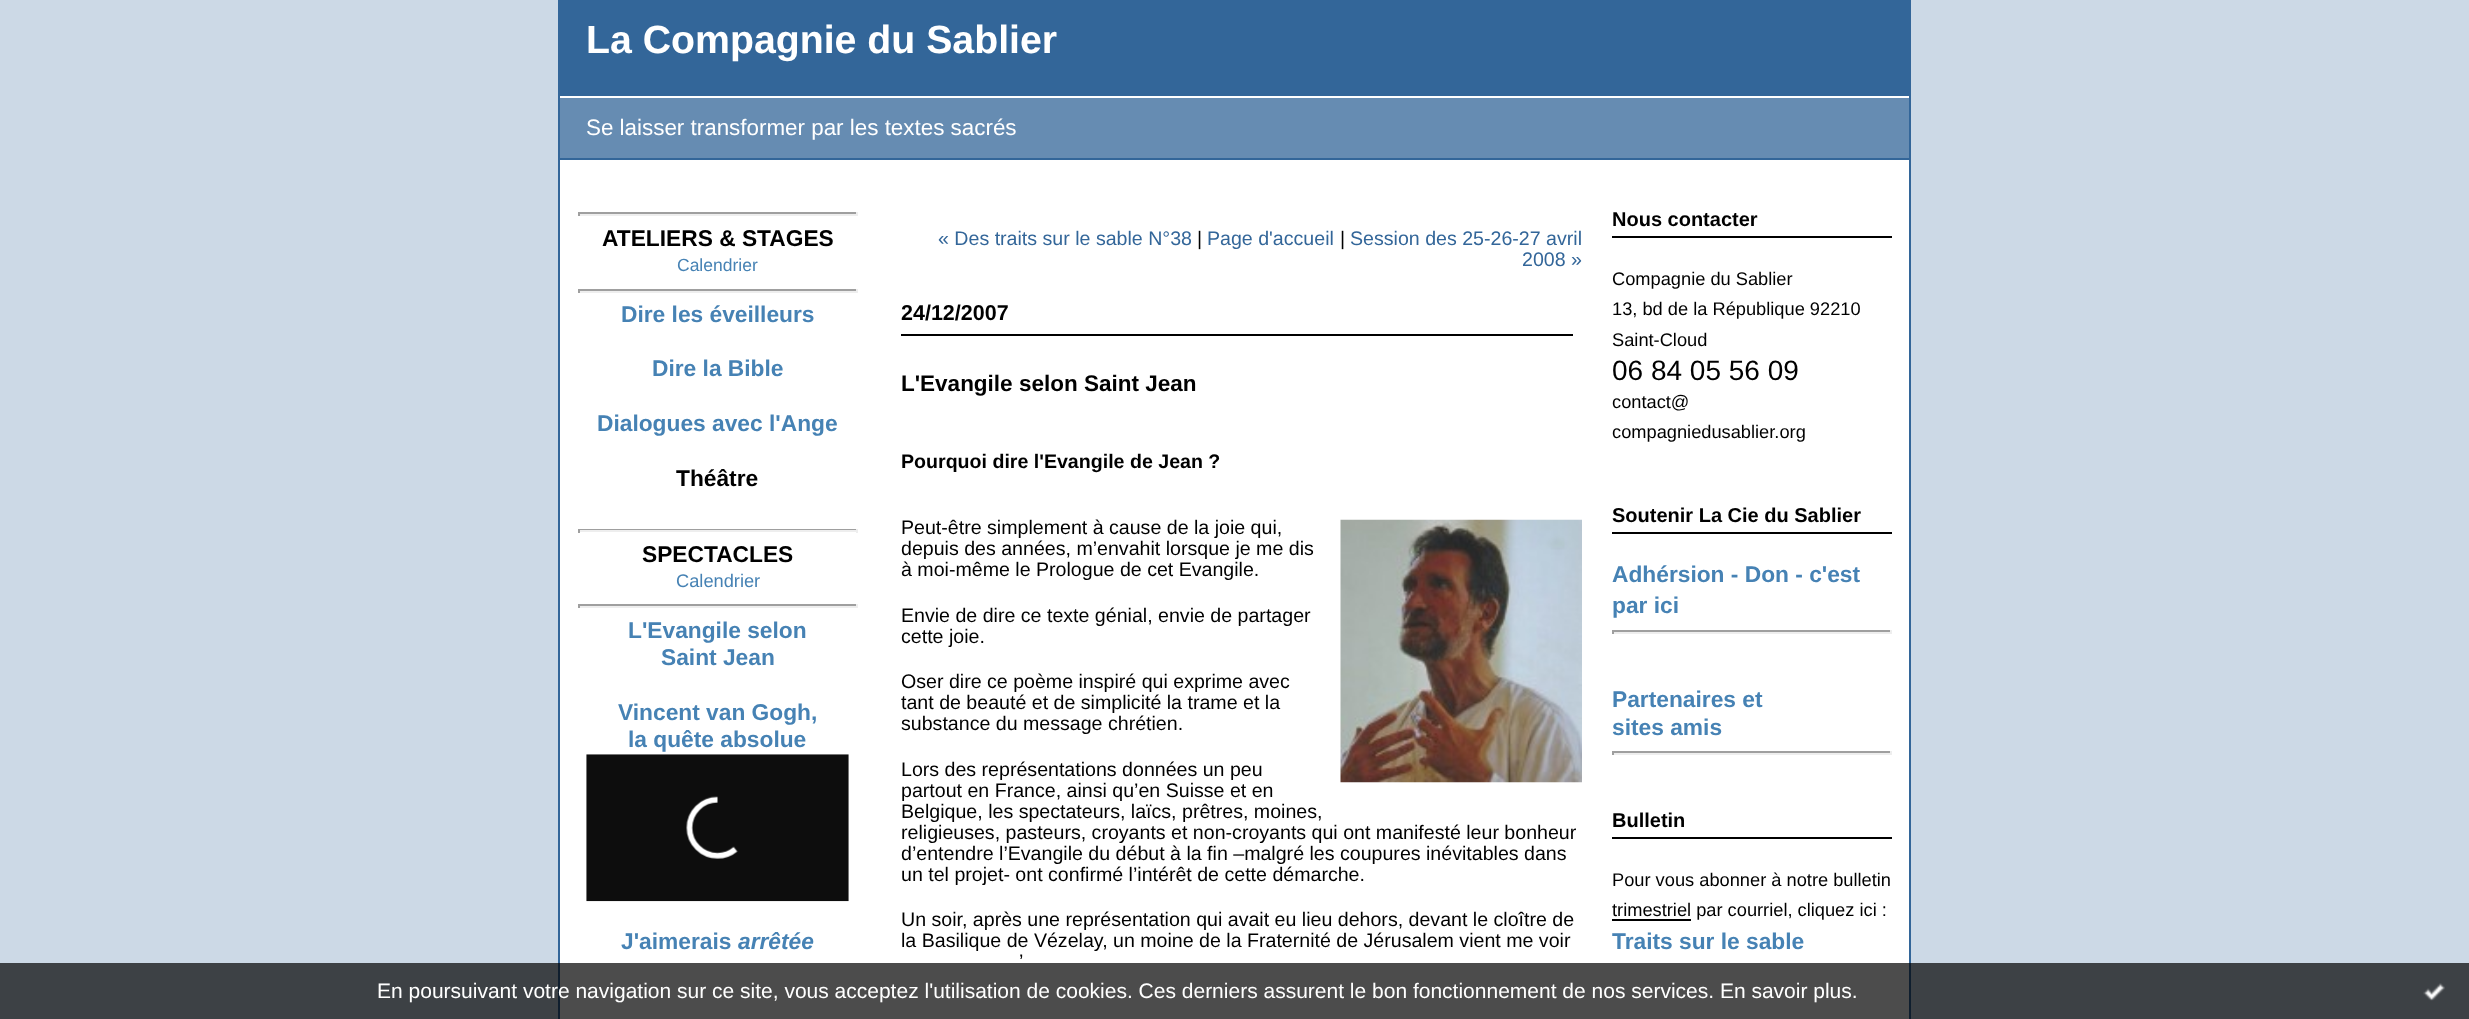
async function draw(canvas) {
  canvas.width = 2469;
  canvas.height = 1019;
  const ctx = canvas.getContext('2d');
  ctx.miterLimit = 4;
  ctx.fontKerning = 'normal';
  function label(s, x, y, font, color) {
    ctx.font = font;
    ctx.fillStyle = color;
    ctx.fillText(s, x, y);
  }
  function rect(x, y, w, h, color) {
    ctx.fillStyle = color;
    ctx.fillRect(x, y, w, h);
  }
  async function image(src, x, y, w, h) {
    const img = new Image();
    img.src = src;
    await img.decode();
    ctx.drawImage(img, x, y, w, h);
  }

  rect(0, 0, 2469, 1019, '#ccd9e6');
  rect(560, 160, 1349, 859, '#fff');
  ctx.strokeStyle = '#369';
  ctx.lineWidth = 2;
  ctx.strokeRect(559, 1, 1351, 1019);
  rect(560, 2, 1349, 94, '#369');
  label('La Compagnie du Sablier', 586, 53, 'bold 39.25px Liberation Sans', '#fff');
  rect(560, 98, 1349, 60, '#668cb2');
  rect(560, 96, 1349, 2, '#fff');
  rect(560, 158, 1349, 2, '#369');
  label('Se laisser transformer par les textes sacrés', 586, 135, '22.4px Liberation Sans', '#fff');
  rect(578, 212, 280, 2, '#9f9f9f');
  rect(856, 212, 2, 4, '#eee');
  rect(578, 214, 280, 2, '#eee');
  rect(578, 212, 2, 4, '#9f9f9f');
  label('ATELIERS & STAGES', 602, 246, 'bold 22.75px Liberation Sans', '#000');
  label('Calendrier', 677, 271, '17.5px Liberation Sans', '#4682b4');
  rect(578, 289, 280, 2, '#9f9f9f');
  rect(856, 289, 2, 4, '#eee');
  rect(578, 291, 280, 2, '#eee');
  rect(578, 289, 2, 4, '#9f9f9f');
  label('Dire les éveilleurs', 621, 322, 'bold 22.75px Liberation Sans', '#4682b4');
  label('Dire la Bible', 652, 376, 'bold 22.75px Liberation Sans', '#4682b4');
  label('Dialogues avec l\'Ange', 597, 431, 'bold 22.75px Liberation Sans', '#4682b4');
  label('Théâtre', 676, 486, 'bold 22.75px Liberation Sans', '#000');
  rect(578, 529, 280, 1, '#9f9f9f');
  rect(856, 529, 2, 4, '#eee');
  rect(578, 530, 280, 2, '#eee');
  rect(578, 529, 2, 4, '#9f9f9f');
  label('SPECTACLES', 642, 562, 'bold 22.75px Liberation Sans', '#000');
  label('Calendrier', 676, 587, '18.25px Liberation Sans', '#4682b4');
  rect(578, 604, 280, 2, '#9f9f9f');
  rect(856, 604, 2, 4, '#eee');
  rect(578, 606, 280, 2, '#eee');
  rect(578, 604, 2, 4, '#9f9f9f');
  label('L\'Evangile selon', 628, 638, 'bold 22.75px Liberation Sans', '#4682b4');
  label('Saint Jean', 661, 665, 'bold 22.75px Liberation Sans', '#4682b4');
  label('Vincent van Gogh,', 618, 720, 'bold 22.75px Liberation Sans', '#4682b4');
  label('la quête absolue', 628, 747, 'bold 22.75px Liberation Sans', '#4682b4');
  await image('assets/img1.png', 586, 754, 263, 148);
  label('J\'aimerais', 621, 949, 'bold 22.75px Liberation Sans', '#4682b4');
  label('arrêtée', 738, 949, 'italic bold 22.75px Liberation Sans', '#4682b4');
  label('« Des traits sur le sable N°38', 938, 245, '19.6px Liberation Sans', '#369');
  label('|', 1197, 245, '19.6px Liberation Sans', '#000');
  label('Page d\'accueil', 1207, 245, '19.6px Liberation Sans', '#369');
  label('|', 1340, 245, '19.6px Liberation Sans', '#000');
  label('Session des 25-26-27 avril', 1350, 245, '19.6px Liberation Sans', '#369');
  label('2008 »', 1522, 266, '19.6px Liberation Sans', '#369');
  rect(901, 334, 672, 2, '#000');
  label('24/12/2007', 901, 320, 'bold 21.5px Liberation Sans', '#000');
  label('L\'Evangile selon Saint Jean', 901, 391, 'bold 22.5px Liberation Sans', '#000');
  label('Pourquoi dire l\'Evangile de Jean ?', 901, 468, 'bold 19.6px Liberation Sans', '#000');
  label('Peut-être simplement à cause de la joie qui,', 901, 534, '19.6px Liberation Sans', '#000');
  await image('assets/img2.png', 1340, 519, 242, 264);
  label('depuis des années, m’envahit lorsque je me dis', 901, 555, '19.6px Liberation Sans', '#000');
  label('à moi-même le Prologue de cet Evangile.', 901, 576, '19.6px Liberation Sans', '#000');
  label('Envie de dire ce texte génial, envie de partager', 901, 622, '19.6px Liberation Sans', '#000');
  label('cette joie.', 901, 643, '19.6px Liberation Sans', '#000');
  label('Oser dire ce poème inspiré qui exprime avec', 901, 688, '19.6px Liberation Sans', '#000');
  label('tant de beauté et de simplicité la trame et la', 901, 709, '19.6px Liberation Sans', '#000');
  label('substance du message chrétien.', 901, 730, '19.6px Liberation Sans', '#000');
  label('Lors des représentations données un peu', 901, 776, '19.6px Liberation Sans', '#000');
  label('partout en France, ainsi qu’en Suisse et en', 901, 797, '19.6px Liberation Sans', '#000');
  label('Belgique, les spectateurs, laïcs, prêtres, moines,', 901, 818, '19.6px Liberation Sans', '#000');
  label('religieuses, pasteurs, croyants et non-croyants qui ont manifesté leur bonheur', 901, 839, '19.6px Liberation Sans', '#000');
  label('d’entendre l’Evangile du début à la fin –malgré les coupures inévitables dans', 901, 860, '19.6px Liberation Sans', '#000');
  label('un tel projet- ont confirmé l’intérêt de cette démarche.', 901, 881, '19.6px Liberation Sans', '#000');
  label('Un soir, après une représentation qui avait eu lieu dehors, devant le cloître de', 901, 926, '19.6px Liberation Sans', '#000');
  label('la Basilique de Vézelay, un moine de la Fraternité de Jérusalem vient me voir', 901, 947, '19.6px Liberation Sans', '#000');
  label('’', 1019, 968, '19.6px Liberation Sans', '#000');
  rect(1612, 236, 280, 2, '#000');
  label('Nous contacter', 1612, 226, 'bold 20px Liberation Sans', '#000');
  label('Compagnie du Sablier', 1612, 285, '18.25px Liberation Sans', '#000');
  label('13, bd de la République 92210', 1612, 315, '18.25px Liberation Sans', '#000');
  label('Saint-Cloud', 1612, 346, '18.25px Liberation Sans', '#000');
  label('06 84 05 56 09', 1612, 380, '28px Liberation Sans', '#000');
  label('contact@', 1612, 408, '18.25px Liberation Sans', '#000');
  label('compagniedusablier.org', 1612, 438, '18.25px Liberation Sans', '#000');
  rect(1612, 532, 280, 2, '#000');
  label('Soutenir La Cie du Sablier', 1612, 522, 'bold 20px Liberation Sans', '#000');
  label('Adhérsion - Don - c\'est', 1612, 582, 'bold 22.75px Liberation Sans', '#4682b4');
  label('par ici', 1612, 613, 'bold 22.75px Liberation Sans', '#4682b4');
  rect(1612, 630, 280, 2, '#9f9f9f');
  rect(1890, 630, 2, 4, '#eee');
  rect(1612, 632, 280, 2, '#eee');
  rect(1612, 630, 2, 4, '#9f9f9f');
  label('Partenaires et', 1612, 707, 'bold 22.75px Liberation Sans', '#4682b4');
  label('sites amis', 1612, 735, 'bold 22.75px Liberation Sans', '#4682b4');
  rect(1612, 751, 280, 2, '#9f9f9f');
  rect(1890, 751, 2, 4, '#eee');
  rect(1612, 753, 280, 2, '#eee');
  rect(1612, 751, 2, 4, '#9f9f9f');
  rect(1612, 837, 280, 2, '#000');
  label('Bulletin', 1612, 827, 'bold 20px Liberation Sans', '#000');
  label('Pour vous abonner à notre bulletin', 1612, 886, '18.25px Liberation Sans', '#000');
  rect(1612, 919, 79, 2, '#000');
  label('trimestriel par courriel, cliquez ici :', 1612, 916, '18.25px Liberation Sans', '#000');
  label('Traits sur le sable', 1612, 949, 'bold 22.75px Liberation Sans', '#4682b4');
  rect(0, 963, 2469, 56, '#000000b3');
  label('En poursuivant votre navigation sur ce site, vous acceptez l\'utilisation de cookies. Ces derniers assurent le bon fonctionnement de nos services. En savoir plus.', 377, 998, '21px Liberation Sans', '#fff');
  await image('assets/img3.png', 2423, 983, 22, 18);
}

draw(document.querySelector('canvas'));
